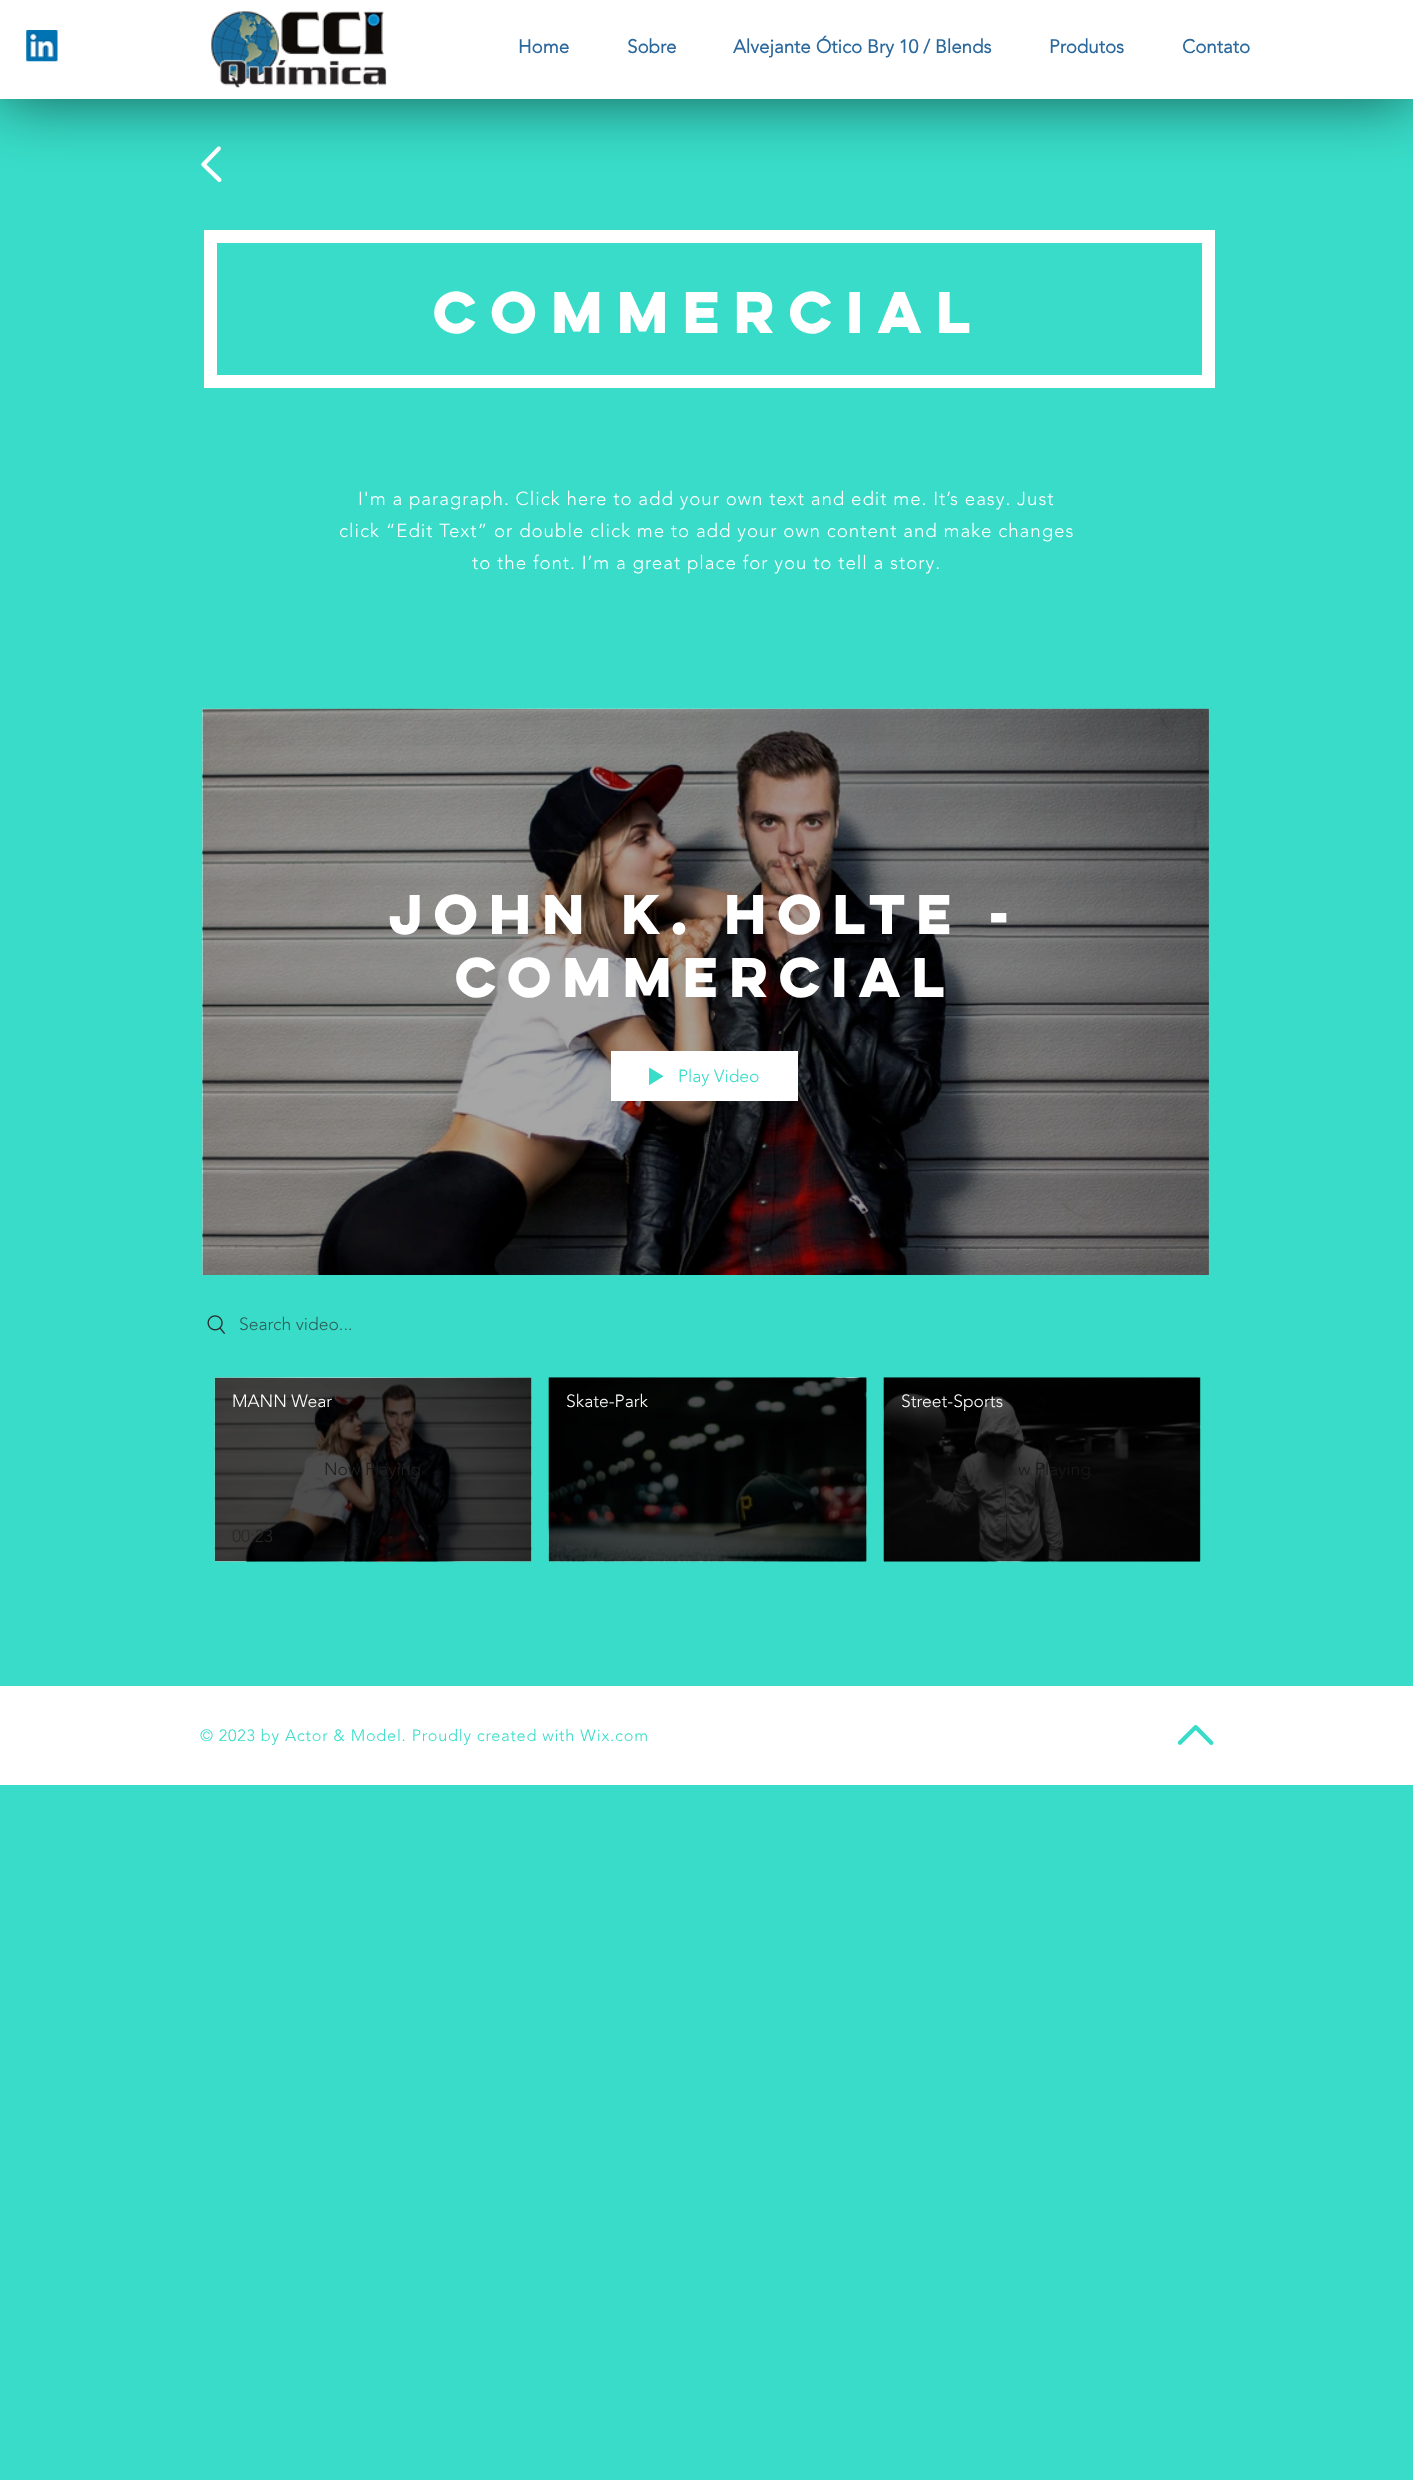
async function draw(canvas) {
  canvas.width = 1413;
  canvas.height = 2480;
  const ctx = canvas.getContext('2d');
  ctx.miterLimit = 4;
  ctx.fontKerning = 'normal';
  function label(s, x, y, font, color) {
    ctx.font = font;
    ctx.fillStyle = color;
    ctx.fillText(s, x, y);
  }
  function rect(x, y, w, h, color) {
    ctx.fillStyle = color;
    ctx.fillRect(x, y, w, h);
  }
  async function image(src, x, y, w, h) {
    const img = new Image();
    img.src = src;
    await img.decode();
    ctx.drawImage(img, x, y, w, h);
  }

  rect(0, 0, 1413, 2480, '#38dcc8');
  await image('assets/img3.png', 201, 146, 21, 36);
  ctx.fillStyle = '#00000099';
  ctx.filter = 'blur(31px)';
  ctx.beginPath();
  ctx.rect(0, 0, 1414, 99);
  ctx.fill();
  ctx.filter = 'none';
  rect(0, 0, 1413, 99, '#fff');
  await image('assets/img1.png', 26, 30, 32, 32);
  await image('assets/img2.png', 211, 11, 176, 77);
  label('Home', 518, 53, 'bold 18.75px "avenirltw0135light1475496"', '#2b689c');
  label('Sobre', 627, 53, 'bold 18.75px "avenirltw0135light1475496"', '#2b689c');
  label('Alvejante Ótico Bry 10 / Blends', 733, 53, 'bold 18.75px "avenirltw0135light1475496"', '#2b689c');
  label('Produtos', 1049, 53, 'bold 18.75px "avenirltw0135light1475496"', '#2b689c');
  label('Contato', 1182, 53, 'bold 18.75px "avenirltw0135light1475496"', '#2b689c');
  ctx.strokeStyle = '#fff';
  ctx.lineWidth = 13;
  ctx.strokeRect(210.5, 236.5, 998, 145);
  ctx.letterSpacing = '2.6px';
  label('Commercial', 433, 333, 'bold 52.5px "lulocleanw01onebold"', '#fff');
  ctx.letterSpacing = '0.95px';
  label('I\'m a paragraph. Click here to add your own text and edit me. It’s easy. Just', 358, 505, '300 18.75px "avenirltw0135light1475496"', '#fff');
  label('click “Edit Text” or double click me to add your own content and make changes', 339, 537, '300 18.75px "avenirltw0135light1475496"', '#fff');
  label('to the font. I’m a great place for you to tell a story.', 472, 569, '300 18.75px "avenirltw0135light1475496"', '#fff');
  await image('assets/img4.png', 202, 708, 1007, 567);
  await image('assets/img5.png', 202, 708, 1007, 567);
  ctx.letterSpacing = '0px';
  label('John K. Holte -', 389, 934, 'bold 50px "lulocleanw01onebold"', '#fff');
  label('Commercial', 455, 997, 'bold 50px "lulocleanw01onebold"', '#fff');
  rect(611, 1051, 187, 50, '#fff');
  await image('assets/img6.png', 649, 1067, 15, 18);
  label('Play Video', 678, 1082, '300 17.5px "avenirltw0135light1475496"', '#38dcc8');
  await image('assets/img7.png', 207, 1315, 19, 19);
  label('Search video...', 239, 1330, '300 17.5px "avenirltw0135light1475496"', '#2d5e58');
  await image('assets/img8.png', 214, 1377, 318, 184);
  await image('assets/img9.png', 215, 1378, 317, 184);
  label('MANN Wear', 232, 1407, '300 17.5px "avenirltw0135light1475496"', '#fff');
  label('Now Playing', 324, 1475, '300 17.5px "avenirltw0135light1475496"', '#201f1f');
  label('00:23', 232, 1542, '300 17.5px "avenirltw0135light1475496"', '#272726');
  await image('assets/img10.png', 548, 1377, 319, 184);
  await image('assets/img11.png', 548, 1378, 319, 184);
  label('Skate-Park', 566, 1407, '300 17.5px "avenirltw0135light1475496"', '#fff');
  await image('assets/img12.png', 883, 1377, 318, 184);
  await image('assets/img13.png', 883, 1378, 317, 184);
  label('Street-Sports', 901, 1407, '300 17.5px "avenirltw0135light1475496"', '#fff');
  label('w Playing', 1018, 1475, '300 17.5px "avenirltw0135light1475496"', '#191919');
  rect(0, 1686, 1413, 99, '#fff');
  ctx.letterSpacing = '0.8px';
  label('© 2023 by Actor & Model. Proudly created with Wix.com', 200, 1741, '300 16.25px "avenirltw0135light1475496"', '#38dcc8');
  await image('assets/img14.png', 1177, 1725, 37, 20);
}

draw(document.querySelector('canvas'));
